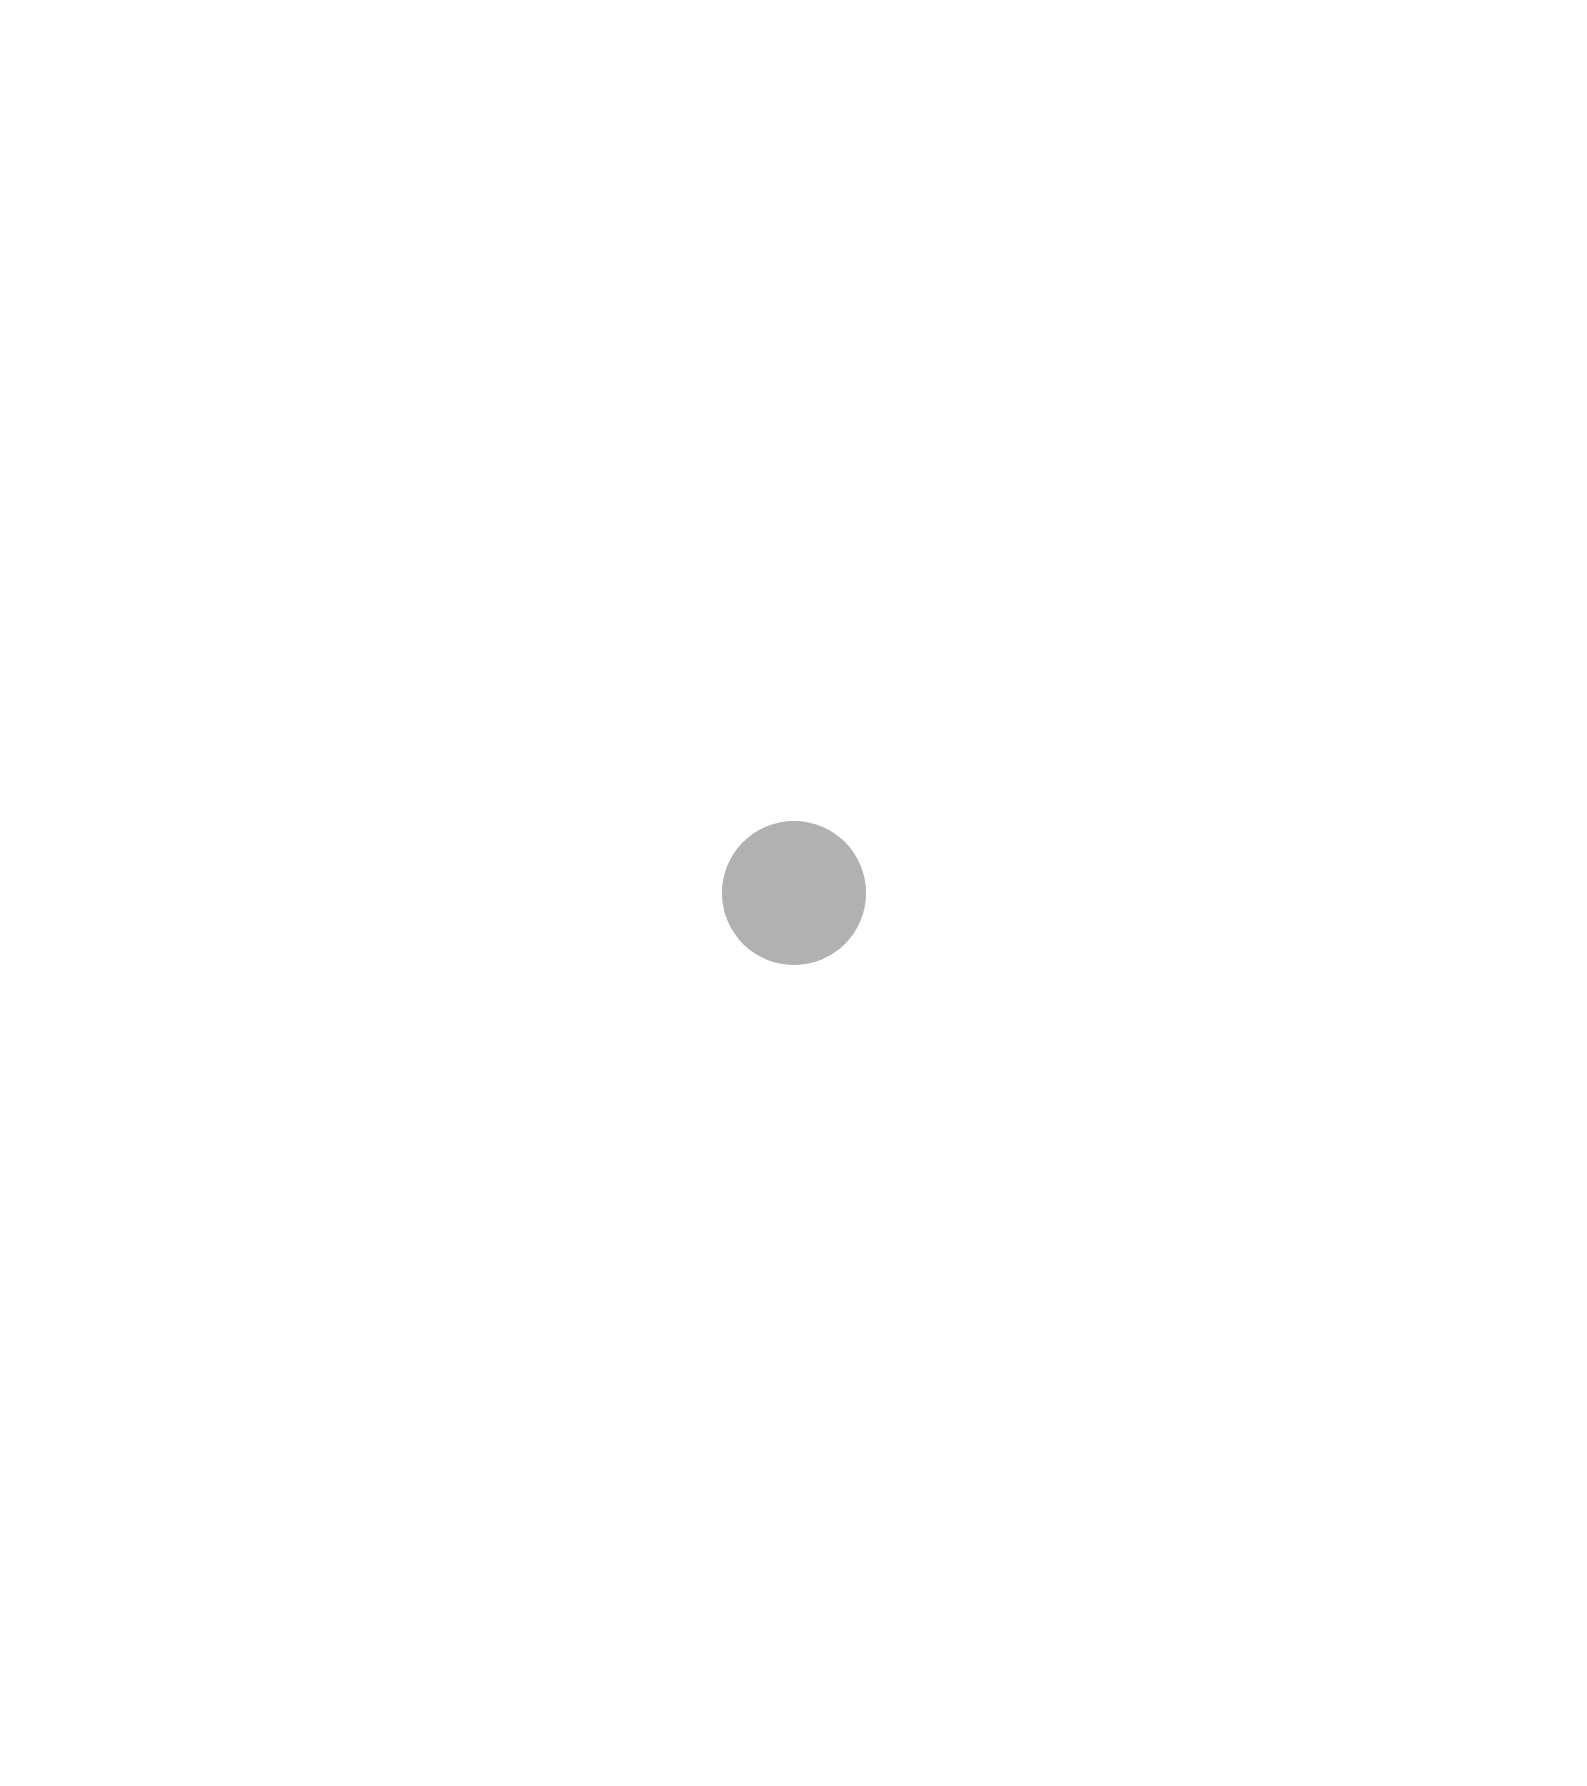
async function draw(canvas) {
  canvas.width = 1587;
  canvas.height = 1786;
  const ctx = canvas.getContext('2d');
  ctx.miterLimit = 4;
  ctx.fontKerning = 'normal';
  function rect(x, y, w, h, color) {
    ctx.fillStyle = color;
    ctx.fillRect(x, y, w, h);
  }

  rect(0, 0, 1587, 1786, '#fff');
  ctx.fillStyle = '#c7c7c7';
  ctx.beginPath();
  ctx.arc(794, 893, 72, 0, 2 * Math.PI);
  ctx.fill();
  ctx.fillStyle = '#a2a2a299';
  ctx.beginPath();
  ctx.arc(794, 893, 72, 0, 2 * Math.PI);
  ctx.fill();
}

draw(document.querySelector('canvas'));
